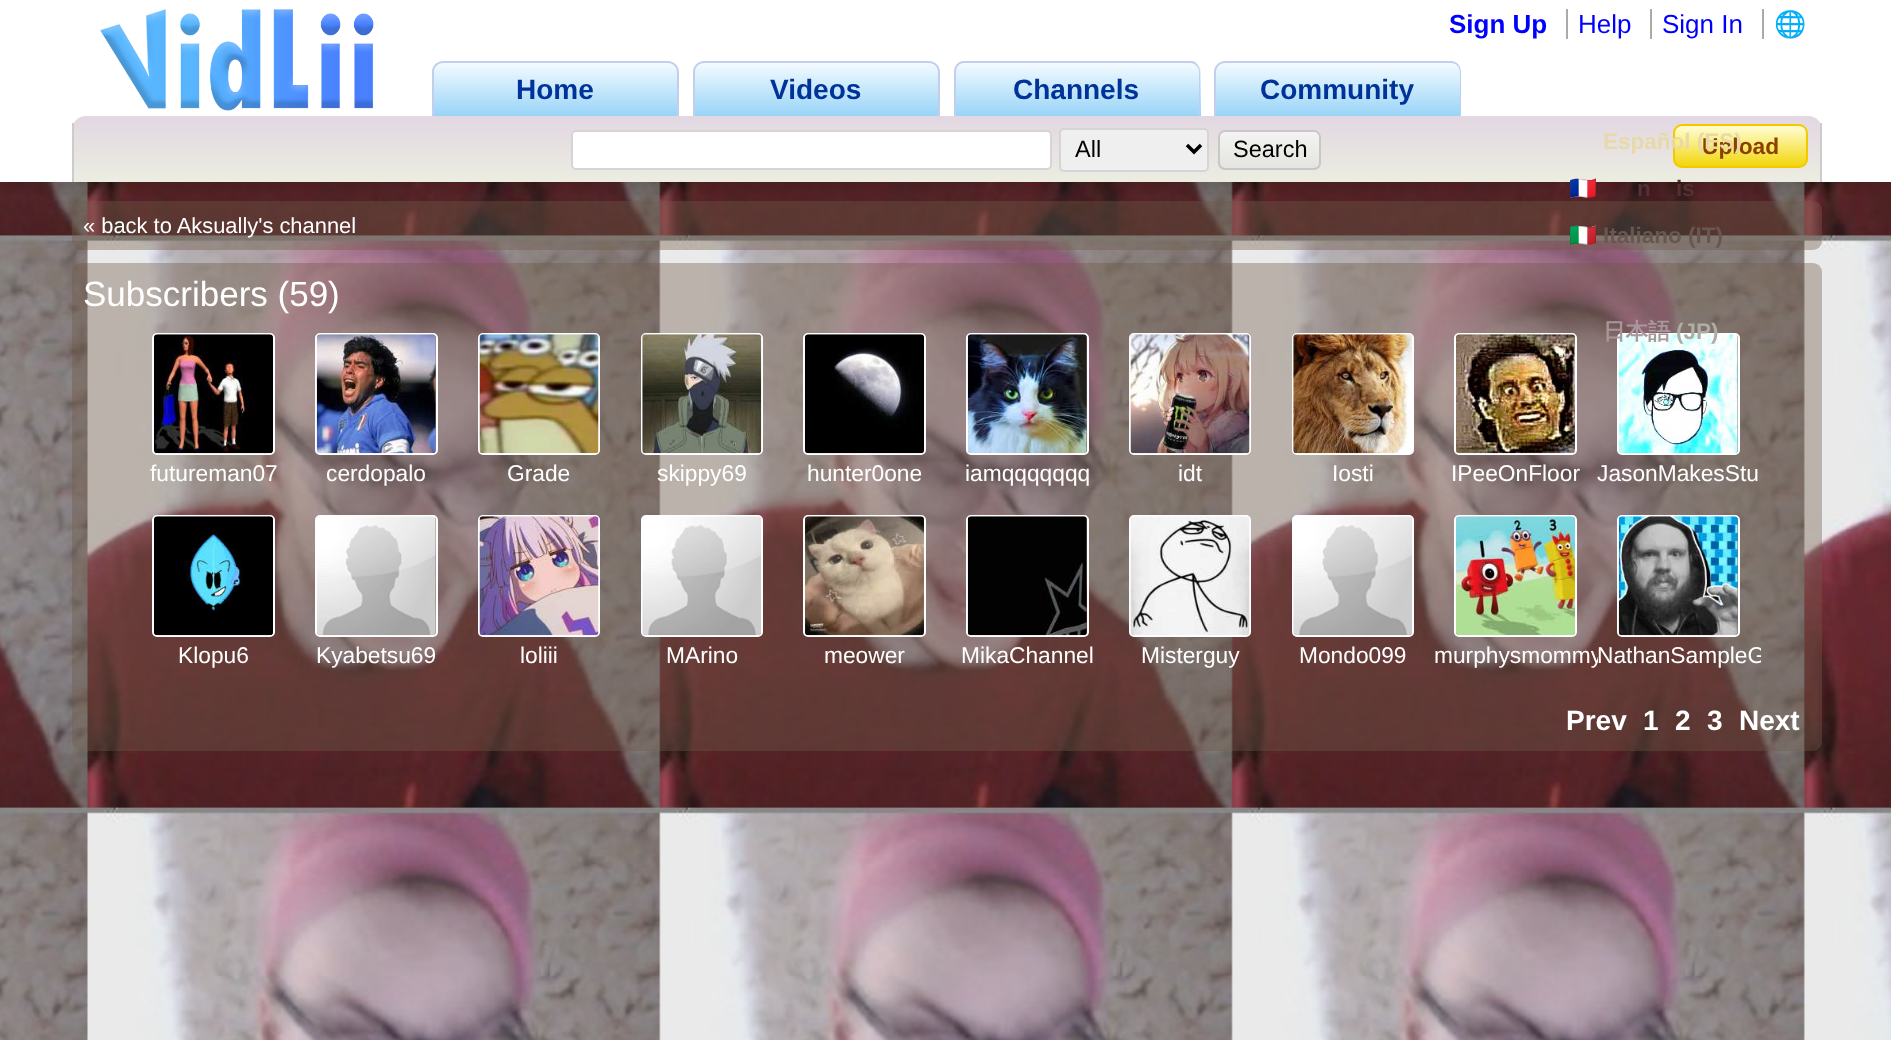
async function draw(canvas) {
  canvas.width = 1891;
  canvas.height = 1043;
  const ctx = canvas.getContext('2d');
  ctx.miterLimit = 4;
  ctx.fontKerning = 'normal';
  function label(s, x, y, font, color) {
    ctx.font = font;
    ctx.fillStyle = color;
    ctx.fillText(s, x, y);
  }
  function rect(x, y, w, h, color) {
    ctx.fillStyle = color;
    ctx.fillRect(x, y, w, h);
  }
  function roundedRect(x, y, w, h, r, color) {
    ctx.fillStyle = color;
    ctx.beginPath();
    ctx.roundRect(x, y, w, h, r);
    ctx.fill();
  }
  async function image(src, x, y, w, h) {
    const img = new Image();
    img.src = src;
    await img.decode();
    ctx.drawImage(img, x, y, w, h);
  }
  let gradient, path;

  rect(0, 0, 1891, 1043, '#fff');
  await image('assets/img2.png', 0, 182, 1891, 858);
  roundedRect(72, 201, 1750, 49, 9, '#705a4963');
  ctx.save();
  ctx.beginPath();
  ctx.rect(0, 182, 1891, 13);
  ctx.clip();
  ctx.fillStyle = '#00000026';
  ctx.filter = 'blur(8px)';
  ctx.beginPath();
  ctx.rect(0, 4, 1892, 182);
  ctx.fill();
  ctx.filter = 'none';
  ctx.restore();
  await image('assets/img1.png', 100, 9, 274, 102);
  ctx.save();
  ctx.beginPath();
  ctx.roundRect(432, 61, 247, 56, [11, 11, 0, 0]);
  ctx.clip();
  gradient = ctx.createLinearGradient(556, 63, 556, 117);
  gradient.addColorStop(0, '#f4fbff');
  gradient.addColorStop(1, '#96d3f7');
  ctx.fillStyle = gradient;
  ctx.fillRect(432, 63, 247, 53);
  ctx.restore();
  ctx.fillStyle = '#c2cfec';
  path = new Path2D('M443 61H668C674 61 679 66 679 72V117H432V72C432 66 437 61 443 61ZM443 63H668C673 63 677 67 677 72V117H434V72C434 67 438 63 443 63Z');
  ctx.fill(path, 'evenodd');
  label('Home', 516, 99, 'bold 28px Liberation Sans', '#039');
  ctx.save();
  ctx.beginPath();
  ctx.roundRect(693, 61, 247, 56, [11, 11, 0, 0]);
  ctx.clip();
  gradient = ctx.createLinearGradient(816, 63, 816, 117);
  gradient.addColorStop(0, '#f4fbff');
  gradient.addColorStop(1, '#96d3f7');
  ctx.fillStyle = gradient;
  ctx.fillRect(693, 63, 247, 53);
  ctx.restore();
  ctx.fillStyle = '#c2cfec';
  path = new Path2D('M704 61H929C935 61 940 66 940 72V117H693V72C693 66 698 61 704 61ZM704 63H929C934 63 938 67 938 72V117H695V72C695 67 699 63 704 63Z');
  ctx.fill(path, 'evenodd');
  label('Videos', 770, 99, 'bold 28px Liberation Sans', '#039');
  ctx.save();
  ctx.beginPath();
  ctx.roundRect(954, 61, 247, 56, [11, 11, 0, 0]);
  ctx.clip();
  gradient = ctx.createLinearGradient(1077, 9, 1077, 63);
  gradient.addColorStop(0, '#f4fbff');
  gradient.addColorStop(1, '#96d3f7');
  ctx.fillStyle = gradient;
  ctx.fillRect(954, 61, 247, 2);
  gradient = ctx.createLinearGradient(1077, 63, 1077, 117);
  gradient.addColorStop(0, '#f4fbff');
  gradient.addColorStop(1, '#96d3f7');
  ctx.fillStyle = gradient;
  ctx.fillRect(954, 63, 247, 53);
  ctx.restore();
  ctx.fillStyle = '#c2cfec';
  path = new Path2D('M964 61H1190C1196 61 1200 66 1200 72V117H954V72C954 66 958 61 964 61ZM964 63H1190C1195 63 1199 67 1199 72V117H956V72C956 67 959 63 964 63Z');
  ctx.fill(path, 'evenodd');
  label('Channels', 1013, 99, 'bold 28px Liberation Sans', '#039');
  ctx.save();
  ctx.beginPath();
  ctx.roundRect(1215, 61, 246, 56, [11, 11, 0, 0]);
  ctx.clip();
  gradient = ctx.createLinearGradient(1338, 63, 1338, 117);
  gradient.addColorStop(0, '#f4fbff');
  gradient.addColorStop(1, '#96d3f7');
  ctx.fillStyle = gradient;
  ctx.fillRect(1215, 63, 246, 53);
  ctx.restore();
  ctx.fillStyle = '#c2cfec';
  path = new Path2D('M1225 61H1451C1457 61 1461 66 1461 72V117H1214V72C1214 66 1219 61 1225 61ZM1225 63H1451C1456 63 1460 67 1460 72V117H1216V72C1216 67 1220 63 1225 63Z');
  ctx.fill(path, 'evenodd');
  label('Community', 1260, 99, 'bold 28px Liberation Sans', '#039');
  label('Sign Up', 1449, 33, 'bold 26px Liberation Sans', '#00f');
  label('🌐', 1774, 33, '26px Noto Color Emoji', '#000');
  rect(1762, 9, 2, 30, '#aaa');
  gradient = ctx.createLinearGradient(947, 115, 947, 182);
  gradient.addColorStop(0.01, '#e2d7e2');
  gradient.addColorStop(1, '#ecede1');
  ctx.fillStyle = gradient;
  ctx.beginPath();
  ctx.roundRect(72, 116, 1750, 66, [14, 14, 0, 0]);
  ctx.fill();
  ctx.save();
  ctx.beginPath();
  ctx.roundRect(1673, 124, 135, 44, 9);
  ctx.clip();
  gradient = ctx.createLinearGradient(1740, 126, 1740, 166);
  gradient.addColorStop(0.07, '#fffbc7');
  gradient.addColorStop(1, '#f2d70c');
  ctx.fillStyle = gradient;
  ctx.fillRect(1673, 126, 135, 40);
  ctx.restore();
  ctx.beginPath();
  ctx.roundRect(1674, 125, 133, 42, 8);
  ctx.strokeStyle = '#f4c800';
  ctx.lineWidth = 2;
  ctx.stroke();
  label('Upload', 1702, 154, 'bold 22.75px Liberation Sans', '#8a4100');
  label('Español (ES)', 1603, 149, 'bold 22.5px Liberation Sans', '#e7d9a9');
  label('🇫🇷', 1569, 196, 'bold 22.5px Noto Color Emoji', '#7b5958');
  label('n', 1637, 196, 'bold 22.5px Liberation Sans', '#543032');
  label('is', 1676, 196, 'bold 22.5px Liberation Sans', '#543032');
  label('🇮🇹', 1569, 243, 'bold 22.5px Noto Color Emoji', '#6f4f4d');
  label('Italiano (IT)', 1603, 243, 'bold 22.5px Liberation Sans', '#685651');
  roundedRect(72, 263, 1750, 488, 9, '#705a4963');
  ctx.beginPath();
  ctx.roundRect(1618, 334, 121, 120, 4);
  ctx.strokeStyle = '#fff';
  ctx.stroke();
  await image('assets/img12.png', 1618, 334, 120, 120);
  label('日本語', 1603, 339, 'bold 22.5px WenQuanYi Zen Hei', '#a8989c');
  label('(JP)', 1676, 339, 'bold 22.5px Liberation Sans', '#afaca7');
  label('Help', 1578, 33, '26px Liberation Sans', '#00f');
  rect(1566, 9, 2, 30, '#aaa');
  label('Sign In', 1662, 33, '26px Liberation Sans', '#00f');
  rect(1650, 9, 2, 30, '#aaa');
  rect(1820, 123, 2, 59, '#ccc');
  rect(72, 123, 2, 59, '#ccc');
  ctx.fillStyle = '#fff';
  ctx.beginPath();
  ctx.roundRect(572, 131, 479, 38, 4);
  ctx.fill();
  ctx.strokeStyle = '#d5d5d5';
  ctx.stroke();
  ctx.fillStyle = '#efefef';
  ctx.beginPath();
  ctx.roundRect(1060, 129, 148, 42, 4);
  ctx.fill();
  ctx.stroke();
  path = new Path2D('M1187 145L1194 152L1201 145');
  ctx.strokeStyle = '#000';
  ctx.lineWidth = 3.5;
  ctx.stroke(path);
  label('All', 1075, 157, '23.5px Liberation Sans', '#000');
  ctx.save();
  ctx.beginPath();
  ctx.roundRect(1218, 130, 103, 40, 7);
  ctx.clip();
  gradient = ctx.createLinearGradient(1270, 131, 1270, 168);
  gradient.addColorStop(0, '#f4f4f4');
  gradient.addColorStop(1, '#e4e5de');
  ctx.fillStyle = gradient;
  ctx.fillRect(1218, 131, 103, 37);
  ctx.restore();
  ctx.beginPath();
  ctx.roundRect(1219, 131, 101, 38, 6);
  ctx.strokeStyle = '#c7c7c7';
  ctx.lineWidth = 2;
  ctx.stroke();
  label('Search', 1233, 157, '23.5px Liberation Sans', '#000');
  label('« back to Aksually\'s channel', 83, 233, '21.9px Liberation Sans', '#fff');
  label('Subscribers (59)', 83, 306, '35px Liberation Sans', '#fff');
  ctx.beginPath();
  ctx.roundRect(153, 334, 121, 120, 4);
  ctx.strokeStyle = '#fff';
  ctx.stroke();
  await image('assets/img3.png', 154, 334, 119, 120);
  label('futureman07', 150, 481, '22.75px Liberation Sans', '#fff');
  ctx.beginPath();
  ctx.roundRect(316, 334, 121, 120, 4);
  ctx.stroke();
  await image('assets/img4.png', 316, 334, 120, 120);
  label('cerdopalo', 326, 481, '22.75px Liberation Sans', '#fff');
  ctx.beginPath();
  ctx.roundRect(479, 334, 120, 120, 4);
  ctx.stroke();
  await image('assets/img5.png', 479, 334, 120, 120);
  label('Grade', 507, 481, '22.75px Liberation Sans', '#fff');
  ctx.beginPath();
  ctx.roundRect(642, 334, 120, 120, 4);
  ctx.stroke();
  await image('assets/img6.png', 642, 334, 120, 120);
  label('skippy69', 657, 481, '22.75px Liberation Sans', '#fff');
  ctx.beginPath();
  ctx.roundRect(804, 334, 121, 120, 4);
  ctx.stroke();
  await image('assets/img7.png', 805, 334, 119, 120);
  label('hunter0one', 807, 481, '22.75px Liberation Sans', '#fff');
  ctx.beginPath();
  ctx.roundRect(967, 334, 121, 120, 4);
  ctx.stroke();
  await image('assets/img8.png', 967, 334, 120, 120);
  label('iamqqqqqqq', 965, 481, '22.75px Liberation Sans', '#fff');
  ctx.beginPath();
  ctx.roundRect(1130, 334, 120, 120, 4);
  ctx.stroke();
  await image('assets/img9.png', 1130, 334, 120, 120);
  label('idt', 1178, 481, '22.75px Liberation Sans', '#fff');
  ctx.beginPath();
  ctx.roundRect(1293, 334, 120, 120, 4);
  ctx.stroke();
  await image('assets/img10.png', 1293, 334, 119, 120);
  label('Iosti', 1332, 481, '22.75px Liberation Sans', '#fff');
  ctx.beginPath();
  ctx.roundRect(1455, 334, 121, 120, 4);
  ctx.stroke();
  await image('assets/img11.png', 1456, 334, 119, 120);
  label('IPeeOnFloor', 1451, 481, '22.75px Liberation Sans', '#fff');
  label('JasonMakesStu', 1597, 481, '22.75px Liberation Sans', '#fff');
  ctx.beginPath();
  ctx.roundRect(153, 516, 121, 120, 4);
  ctx.stroke();
  await image('assets/img13.png', 154, 516, 119, 120);
  label('Klopu6', 178, 663, '22.75px Liberation Sans', '#fff');
  ctx.beginPath();
  ctx.roundRect(316, 516, 121, 120, 4);
  ctx.stroke();
  await image('assets/img14.png', 317, 516, 119, 120);
  label('Kyabetsu69', 316, 663, '22.75px Liberation Sans', '#fff');
  ctx.beginPath();
  ctx.roundRect(479, 516, 120, 120, 4);
  ctx.stroke();
  await image('assets/img15.png', 479, 516, 120, 120);
  label('loliii', 520, 663, '22.75px Liberation Sans', '#fff');
  ctx.beginPath();
  ctx.roundRect(642, 516, 120, 120, 4);
  ctx.stroke();
  await image('assets/img16.png', 642, 516, 119, 120);
  label('MArino', 666, 663, '22.75px Liberation Sans', '#fff');
  ctx.beginPath();
  ctx.roundRect(804, 516, 121, 120, 4);
  ctx.stroke();
  await image('assets/img17.png', 805, 516, 119, 120);
  label('meower', 824, 663, '22.75px Liberation Sans', '#fff');
  ctx.beginPath();
  ctx.roundRect(967, 516, 121, 120, 4);
  ctx.stroke();
  await image('assets/img18.png', 967, 516, 120, 120);
  label('MikaChannel', 961, 663, '22.75px Liberation Sans', '#fff');
  ctx.beginPath();
  ctx.roundRect(1130, 516, 120, 120, 4);
  ctx.stroke();
  await image('assets/img19.png', 1130, 516, 120, 119);
  label('Misterguy', 1141, 663, '22.75px Liberation Sans', '#fff');
  ctx.beginPath();
  ctx.roundRect(1293, 516, 120, 120, 4);
  ctx.stroke();
  await image('assets/img20.png', 1293, 516, 119, 120);
  label('Mondo099', 1299, 663, '22.75px Liberation Sans', '#fff');
  ctx.beginPath();
  ctx.roundRect(1455, 516, 121, 120, 4);
  ctx.stroke();
  await image('assets/img21.png', 1456, 516, 119, 120);
  ctx.save();
  ctx.beginPath();
  ctx.rect(1435, 515, 163, 182);
  ctx.clip();
  label('murphysmommy', 1434, 663, '22.75px Liberation Sans', '#fff');
  ctx.restore();
  ctx.beginPath();
  ctx.roundRect(1618, 516, 121, 120, 4);
  ctx.stroke();
  await image('assets/img22.png', 1618, 516, 120, 120);
  ctx.save();
  ctx.beginPath();
  ctx.rect(1598, 515, 163, 182);
  ctx.clip();
  label('NathanSampleG', 1597, 663, '22.75px Liberation Sans', '#fff');
  ctx.restore();
  label('Prev', 1566, 730, 'bold 28px Liberation Sans', '#fff');
  label('1', 1643, 730, 'bold 28px Liberation Sans', '#fff');
  label('2', 1675, 730, 'bold 28px Liberation Sans', '#fff');
  label('3', 1707, 730, 'bold 28px Liberation Sans', '#fff');
  label('Next', 1739, 730, 'bold 28px Liberation Sans', '#fff');
}

draw(document.querySelector('canvas'));
